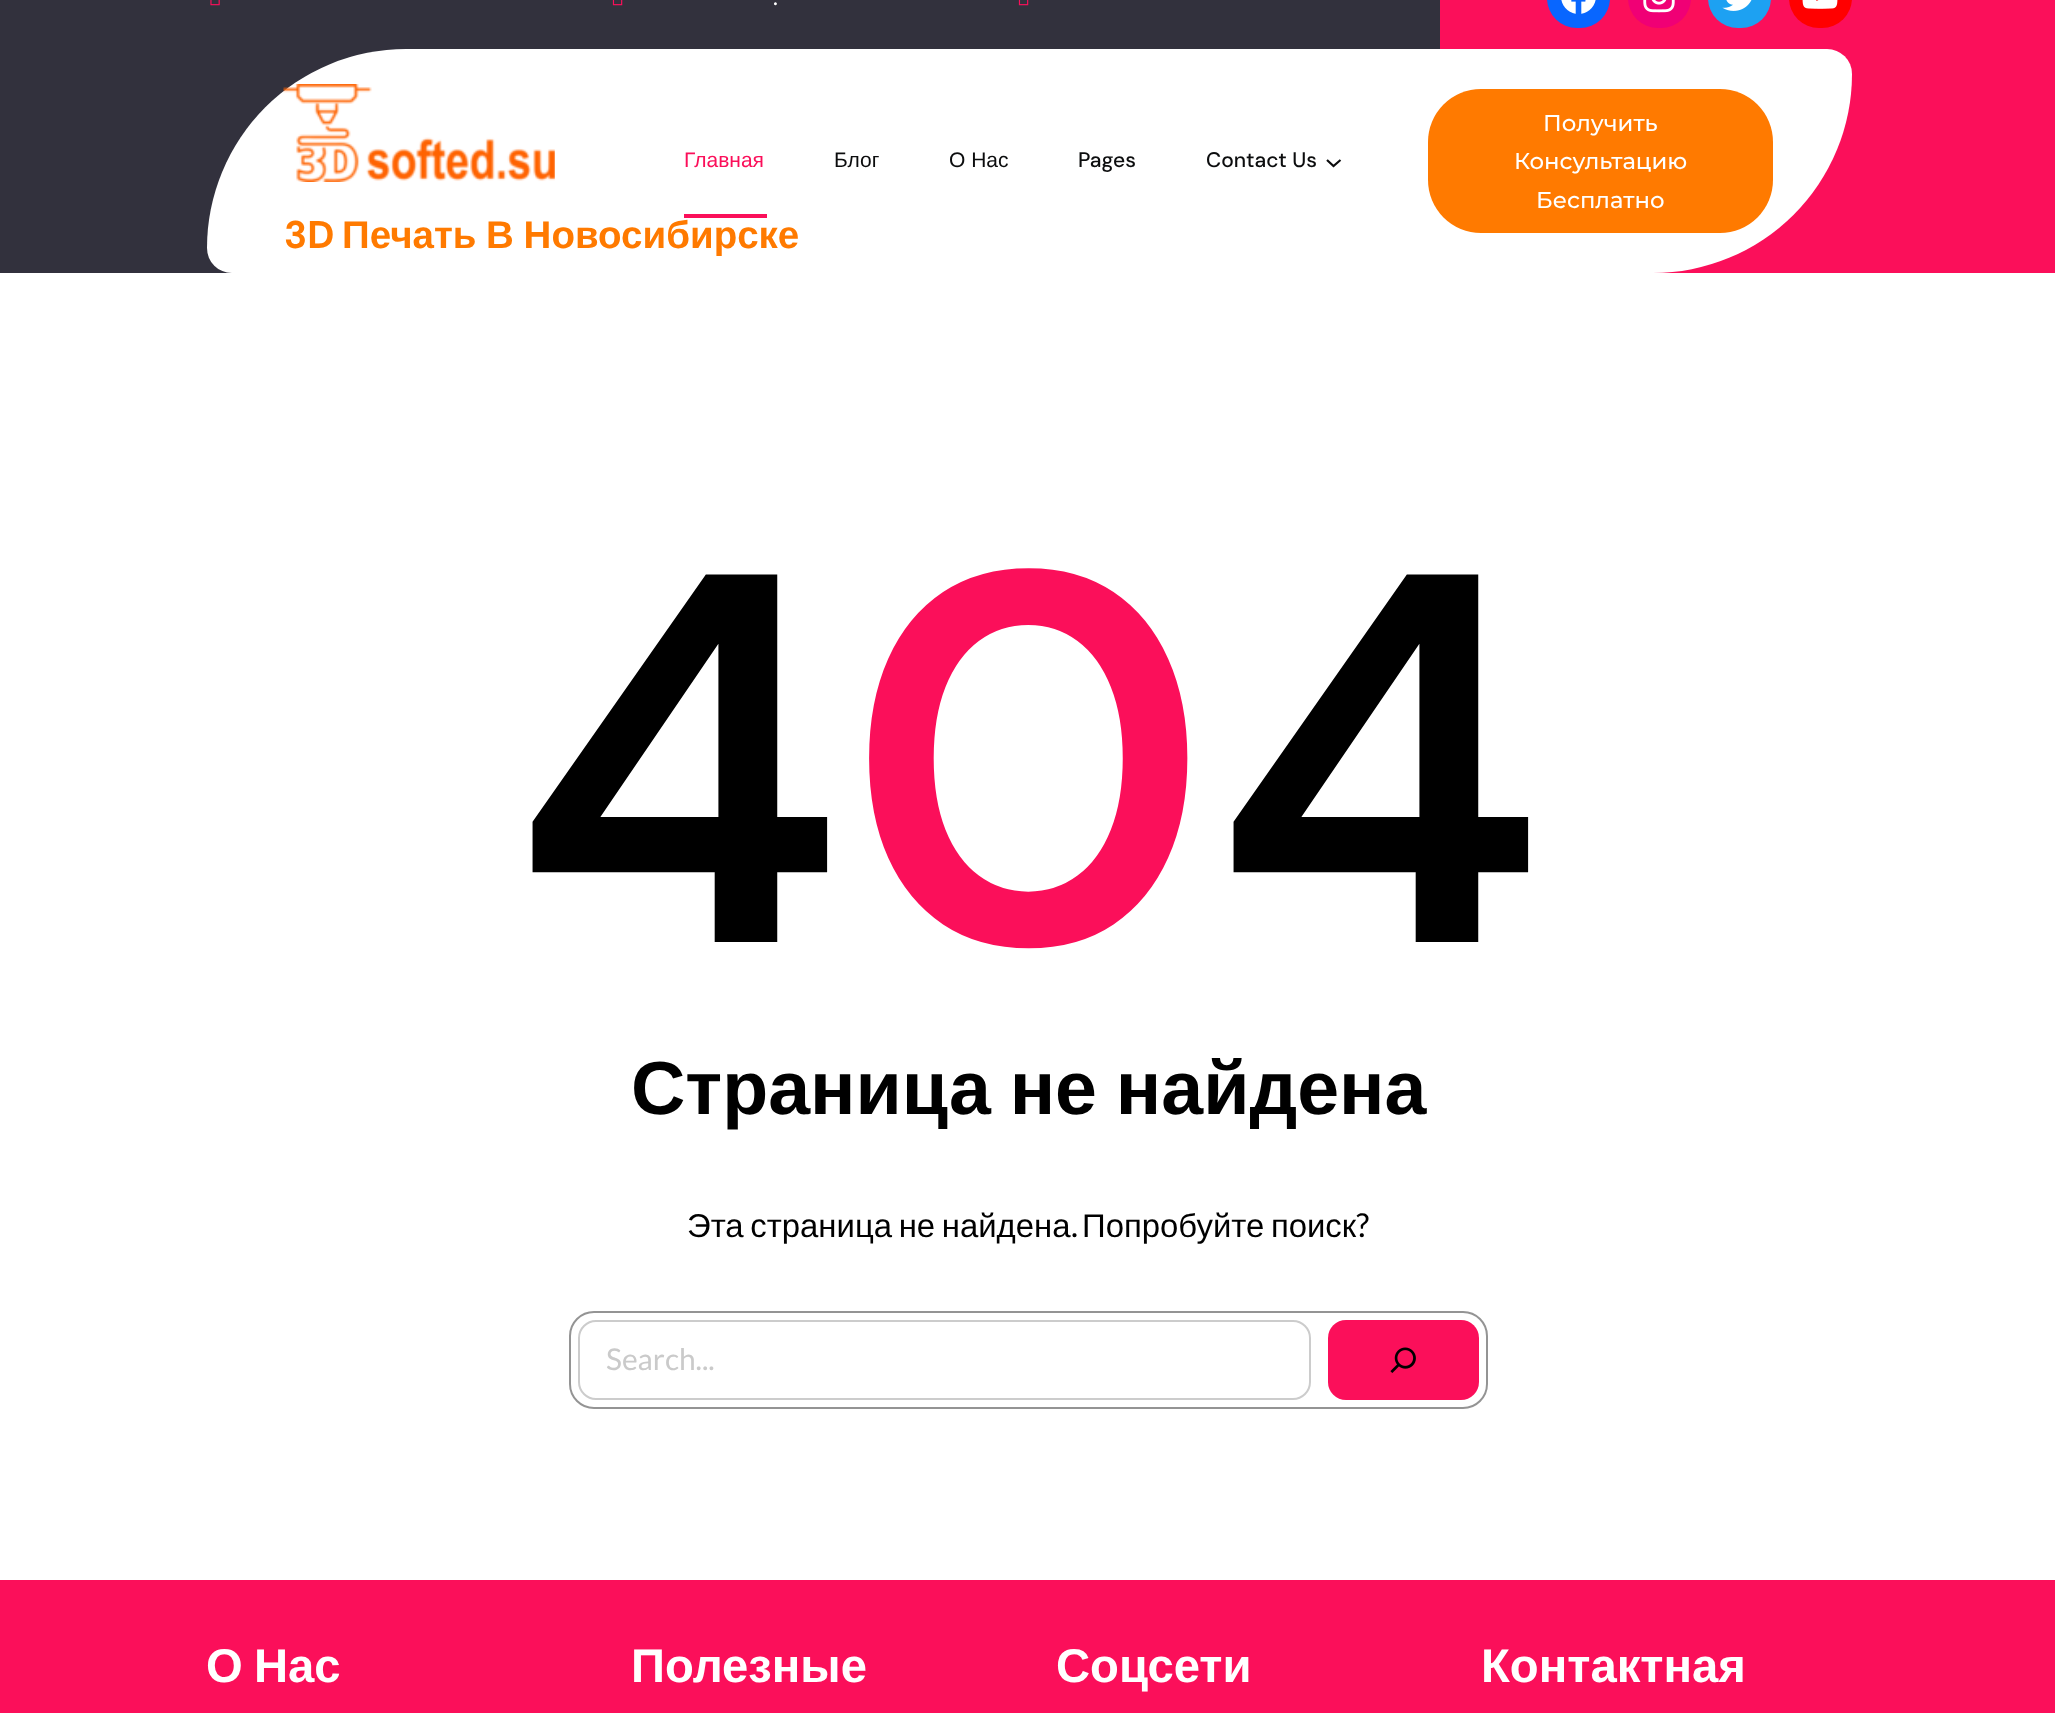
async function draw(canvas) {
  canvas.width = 2055;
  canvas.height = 1713;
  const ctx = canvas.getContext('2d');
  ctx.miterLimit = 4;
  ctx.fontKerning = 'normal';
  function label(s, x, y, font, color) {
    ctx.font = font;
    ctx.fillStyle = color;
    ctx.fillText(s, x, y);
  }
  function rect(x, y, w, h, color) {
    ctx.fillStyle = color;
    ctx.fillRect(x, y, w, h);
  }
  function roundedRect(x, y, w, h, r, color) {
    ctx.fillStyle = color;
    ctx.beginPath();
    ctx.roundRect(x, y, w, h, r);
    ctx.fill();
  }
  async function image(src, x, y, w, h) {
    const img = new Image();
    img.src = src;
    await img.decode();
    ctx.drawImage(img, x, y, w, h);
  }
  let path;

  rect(0, 0, 2055, 1713, '#fff');
  rect(0, 0, 1440, 273, '#32313d');
  rect(1440, 0, 615, 273, '#fb0f5a');
  await image('assets/img1.png', 210, 0, 10, 6);
  await image('assets/img2.png', 612, 0, 11, 6);
  label('.', 773, 5, '22.75px Lato', '#fff');
  await image('assets/img2.png', 1018, 0, 11, 6);
  roundedRect(1547, -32, 63, 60, 31.5, '#0866ff');
  await image('assets/img3.png', 1561, 0, 35, 14);
  roundedRect(1628, -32, 63, 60, 31.5, '#f00075');
  await image('assets/img4.png', 1643, 0, 32, 13);
  roundedRect(1708, -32, 63, 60, 31.5, '#1da1f2');
  await image('assets/img5.png', 1722, 0, 30, 11);
  roundedRect(1789, -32, 63, 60, 31.5, '#f00');
  await image('assets/img6.png', 1802, 0, 36, 9);
  ctx.fillStyle = '#fff';
  ctx.beginPath();
  ctx.roundRect(207, 49, 1645, 224, [199.11, 24.89, 199.11, 24.89]);
  ctx.fill();
  label('Главная', 684, 167, '21px Liberation Sans', '#fb0f5a');
  rect(684, 214, 83, 4, '#fb0f5a');
  label('Блог', 834, 167, '21px Liberation Sans', '#0c0d0e');
  label('О Нас', 949, 167, '21px Liberation Sans', '#0c0d0e');
  label('Pages', 1078, 167, '500 21px DM Sans', '#0c0d0e');
  label('Contact Us', 1206, 167, '500 21px DM Sans', '#0c0d0e');
  path = new Path2D('M1327 160L1333.5 166L1340.5 160');
  ctx.strokeStyle = '#0c0d0e';
  ctx.lineWidth = 2.2;
  ctx.stroke(path);
  roundedRect(1428, 89, 345, 144, 53, '#ff7a00');
  label('Получить', 1543, 131, '500 22.75px Montserrat', '#fff');
  label('Консультацию', 1514, 169, '500 22.75px Montserrat', '#fff');
  label('Бесплатно', 1536, 208, '500 22.75px Montserrat', '#fff');
  await image('assets/img7.png', 283, 84, 272, 98);
  label('3D', 284, 248, 'bold 38.5px DM Sans', '#ff7a00');
  ctx.wordSpacing = '-1px';
  label('Печать В Новосибирске', 342, 248, 'bold 38.5px Liberation Sans', '#ff7a00');
  ctx.wordSpacing = '0px';
  label('4', 510, 942, '600 525px DM Sans', '#000');
  label('0', 845, 942, '600 525px DM Sans', '#fb0f5a');
  label('4', 1211, 942, '600 525px DM Sans', '#000');
  ctx.wordSpacing = '-2px';
  label('Страница не найдена', 631, 1114, 'bold 75.25px Liberation Sans', '#000');
  ctx.wordSpacing = '-2.5px';
  label('Эта страница не найдена', 687, 1237, '32.9px Liberation Sans', '#000');
  ctx.wordSpacing = '0px';
  label('.', 1071, 1237, '32.9px Lato', '#000');
  ctx.wordSpacing = '-2.5px';
  label('Попробуйте поиск', 1082, 1237, '32.9px Liberation Sans', '#000');
  ctx.wordSpacing = '0px';
  label('?', 1356, 1237, '32.9px Lato', '#000');
  ctx.beginPath();
  ctx.roundRect(570, 1312, 917, 96, 24);
  ctx.strokeStyle = '#949494';
  ctx.lineWidth = 2;
  ctx.stroke();
  ctx.beginPath();
  ctx.roundRect(579, 1321, 731, 78, 17);
  ctx.strokeStyle = '#ccc';
  ctx.stroke();
  label('Search...', 606, 1370, '30px Lato', '#cacaca');
  roundedRect(1328, 1320, 151, 80, 18, '#fb0f5a');
  await image('assets/img8.png', 1390, 1347, 26, 26);
  rect(0, 1580, 2055, 133, '#fb0f5a');
  ctx.wordSpacing = '-2px';
  label('О Нас', 206, 1682, 'bold 47.25px Liberation Sans', '#fff');
  ctx.wordSpacing = '0px';
  label('Полезные', 631, 1682, 'bold 47.25px Liberation Sans', '#fff');
  label('Соцсети', 1056, 1682, 'bold 47.25px Liberation Sans', '#fff');
  label('Контактная', 1481, 1682, 'bold 47.25px Liberation Sans', '#fff');
}

draw(document.querySelector('canvas'));
